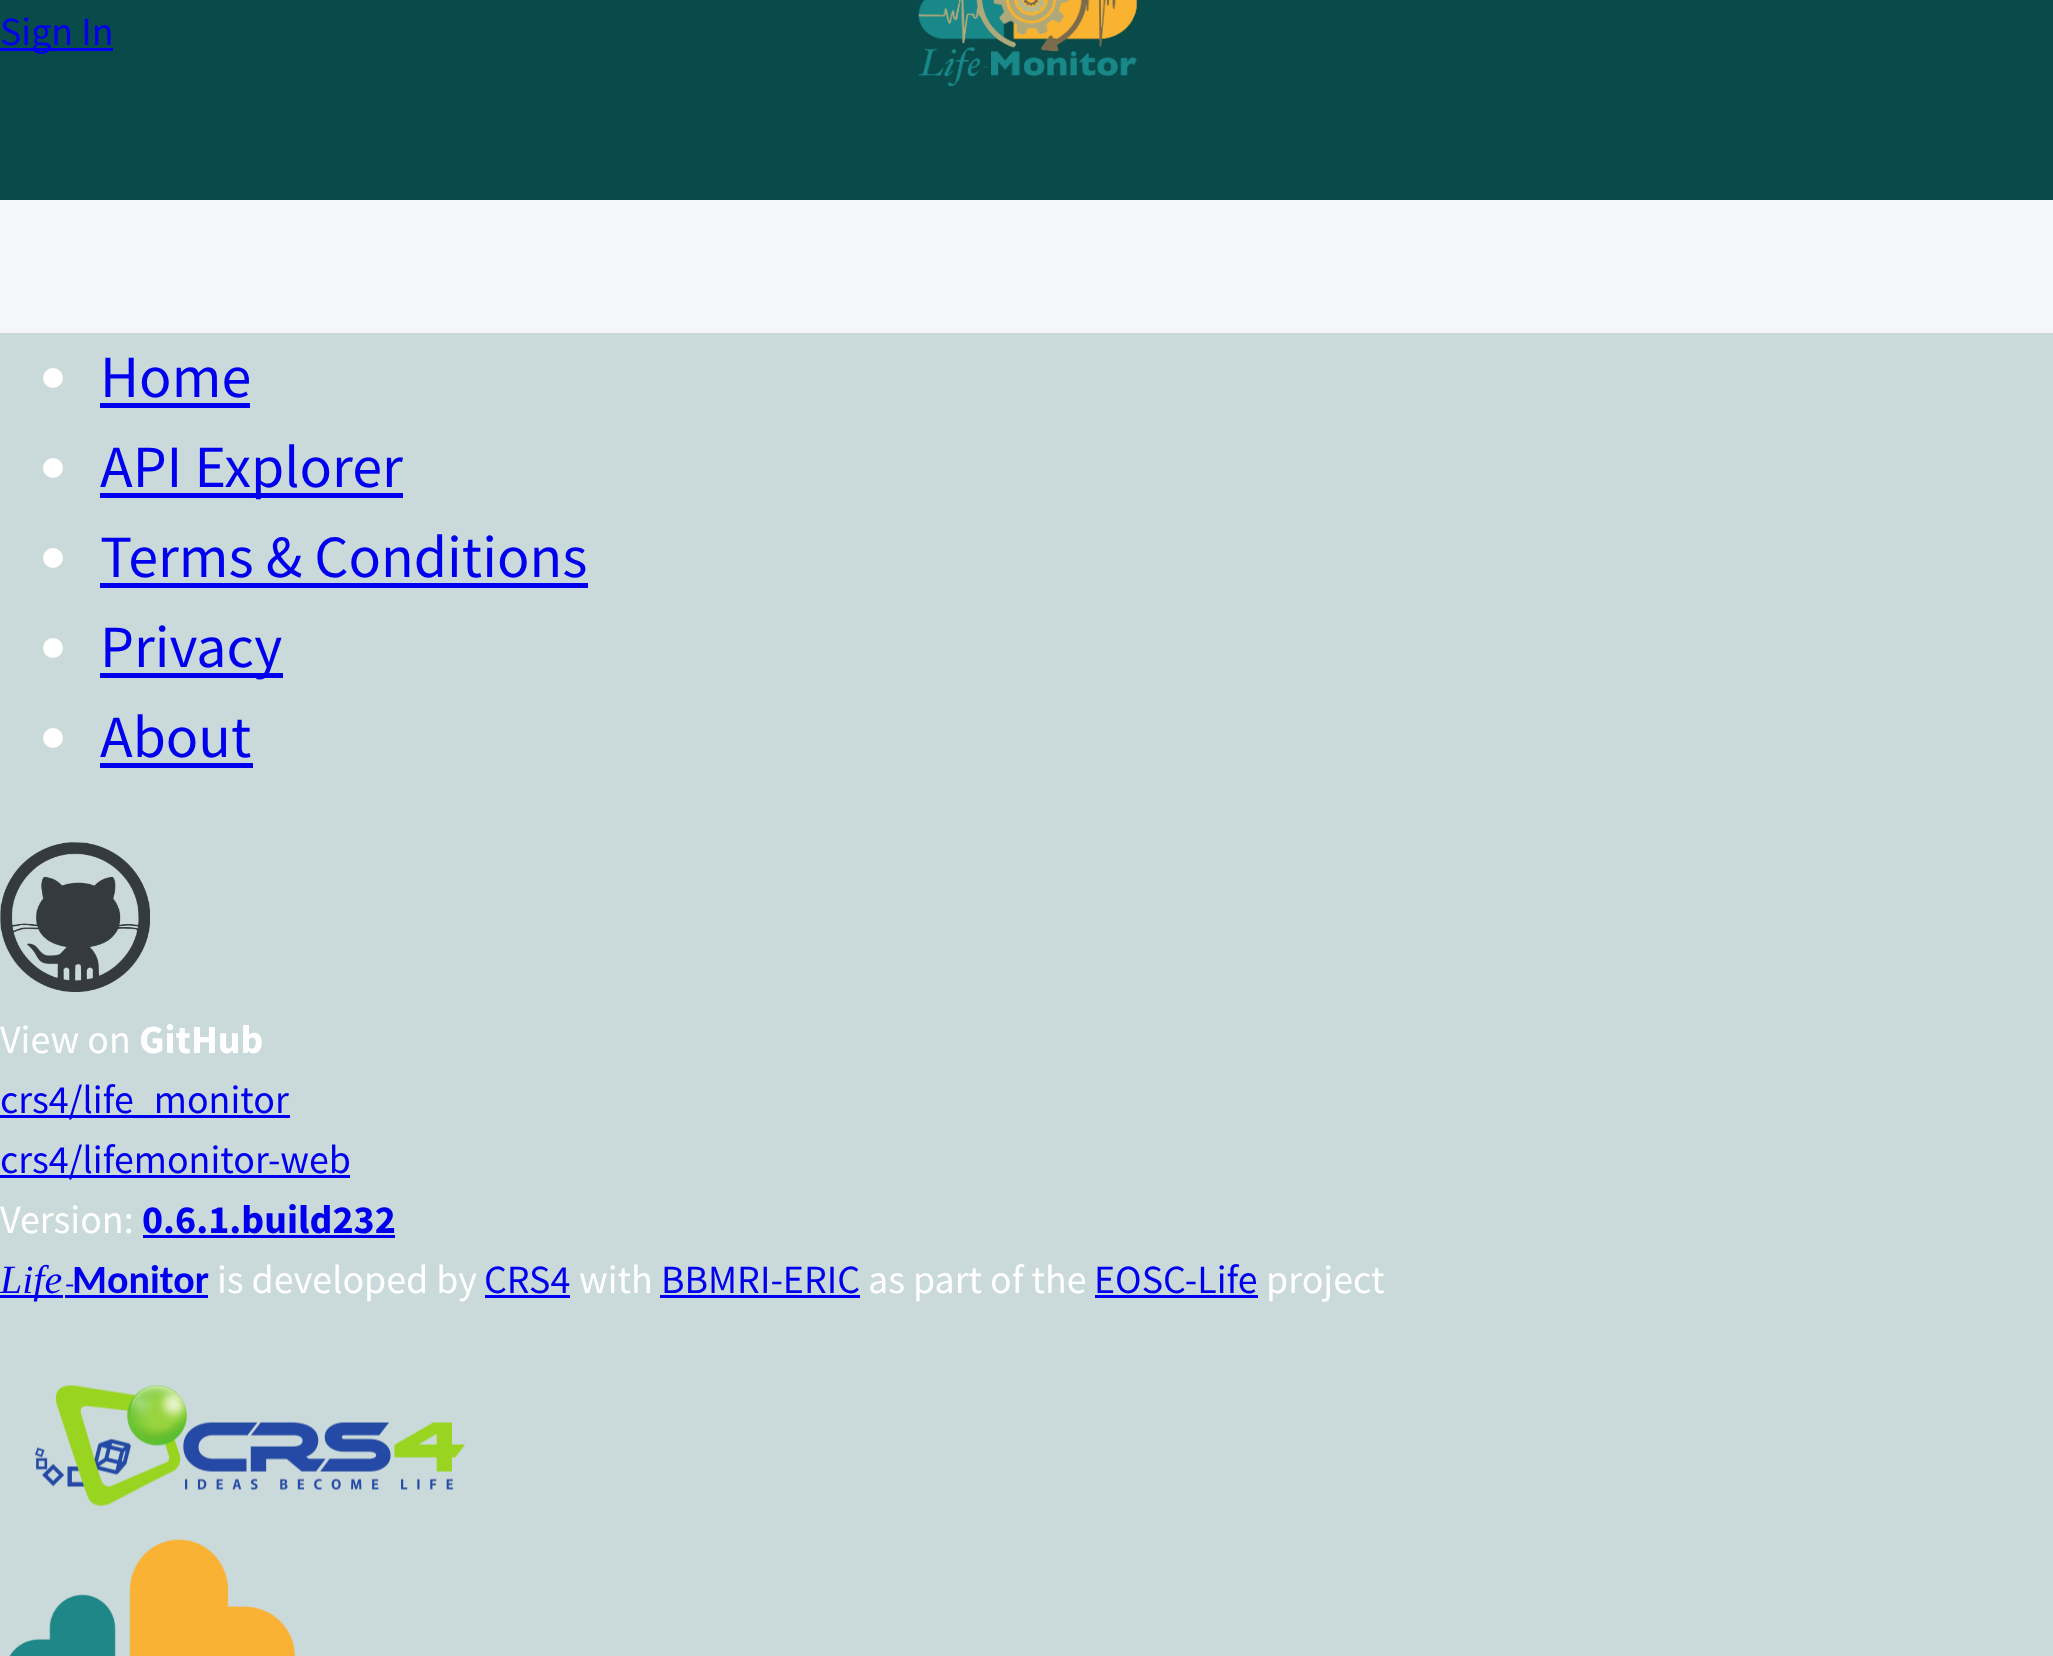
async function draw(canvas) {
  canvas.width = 2053;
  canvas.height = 1656;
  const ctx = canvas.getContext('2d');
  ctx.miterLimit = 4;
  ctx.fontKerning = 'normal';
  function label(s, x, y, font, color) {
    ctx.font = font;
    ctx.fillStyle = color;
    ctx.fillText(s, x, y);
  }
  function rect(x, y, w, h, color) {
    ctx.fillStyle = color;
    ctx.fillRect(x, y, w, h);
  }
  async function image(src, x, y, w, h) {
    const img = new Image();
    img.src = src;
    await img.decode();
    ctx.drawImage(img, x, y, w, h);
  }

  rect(0, 0, 2053, 1656, '#f4f6f9');
  rect(0, 0, 2053, 200, '#094b4b');
  rect(0, 48, 113, 3, '#00e');
  label('Sign In', 0, 45, '40px Source Sans Pro', '#00e');
  await image('assets/img1.png', 918, 0, 219, 86);
  rect(0, 333, 2053, 1323, '#cad9d9');
  ctx.fillStyle = '#fff';
  ctx.beginPath();
  ctx.arc(53, 378, 10, 0, 2 * Math.PI);
  ctx.fill();
  label('Home', 100, 397, '60px Source Sans Pro', '#00e');
  rect(100, 403, 150, 5, '#00e');
  ctx.fillStyle = '#fff';
  ctx.beginPath();
  ctx.arc(53, 468, 10, 0, 2 * Math.PI);
  ctx.fill();
  rect(100, 493, 303, 5, '#00e');
  label('API Explorer', 100, 487, '60px Source Sans Pro', '#00e');
  ctx.fillStyle = '#fff';
  ctx.beginPath();
  ctx.arc(53, 558, 10, 0, 2 * Math.PI);
  ctx.fill();
  label('Terms & Conditions', 100, 577, '60px Source Sans Pro', '#00e');
  rect(100, 583, 488, 5, '#00e');
  ctx.fillStyle = '#fff';
  ctx.beginPath();
  ctx.arc(53, 648, 10, 0, 2 * Math.PI);
  ctx.fill();
  rect(100, 673, 183, 5, '#00e');
  label('Privacy', 100, 667, '60px Source Sans Pro', '#00e');
  ctx.fillStyle = '#fff';
  ctx.beginPath();
  ctx.arc(53, 738, 10, 0, 2 * Math.PI);
  ctx.fill();
  label('About', 100, 757, '60px Source Sans Pro', '#00e');
  rect(100, 763, 153, 5, '#00e');
  await image('assets/img2.png', 0, 842, 150, 150);
  label('View on', 0, 1053, '40px Source Sans Pro', '#fff');
  label('GitHub', 139, 1053, 'bold 40px Source Sans Pro', '#fff');
  rect(0, 1115, 290, 3, '#00e');
  label('crs4/life_monitor', 0, 1113, '40px Source Sans Pro', '#00e');
  rect(0, 1175, 350, 3, '#00e');
  label('crs4/lifemonitor-web', 0, 1173, '40px Source Sans Pro', '#00e');
  label('Version:', 0, 1233, '40px Source Sans Pro', '#fff');
  label('0.6.1.build232', 142, 1233, 'bold 40px Source Sans Pro', '#00e');
  rect(143, 1235, 252, 3, '#00e');
  rect(0, 1295, 63, 3, '#00e');
  label('Life', 0, 1293, 'italic 40px Liberation Serif', '#00e');
  label('-', 65, 1293, '30px Source Sans Pro', '#00e');
  rect(65, 1295, 143, 3, '#00e');
  label('Monitor', 72, 1293, 'bold 40px Carlito', '#00e');
  label('is developed by', 217, 1293, '40px Source Sans Pro', '#fff');
  label('CRS4', 484, 1293, '40px Source Sans Pro', '#00e');
  rect(485, 1295, 85, 3, '#00e');
  label('with', 579, 1293, '40px Source Sans Pro', '#fff');
  label('BBMRI-ERIC', 661, 1293, '40px Source Sans Pro', '#00e');
  rect(660, 1295, 200, 3, '#00e');
  label('as part of the', 868, 1293, '40px Source Sans Pro', '#fff');
  label('EOSC-Life', 1094, 1293, '40px Source Sans Pro', '#00e');
  rect(1095, 1295, 163, 3, '#00e');
  label('project', 1266, 1293, '40px Source Sans Pro', '#fff');
  await image('assets/img3.png', 35, 1385, 430, 121);
  await image('assets/img4.png', 9, 1539, 286, 117);
}

draw(document.querySelector('canvas'));
